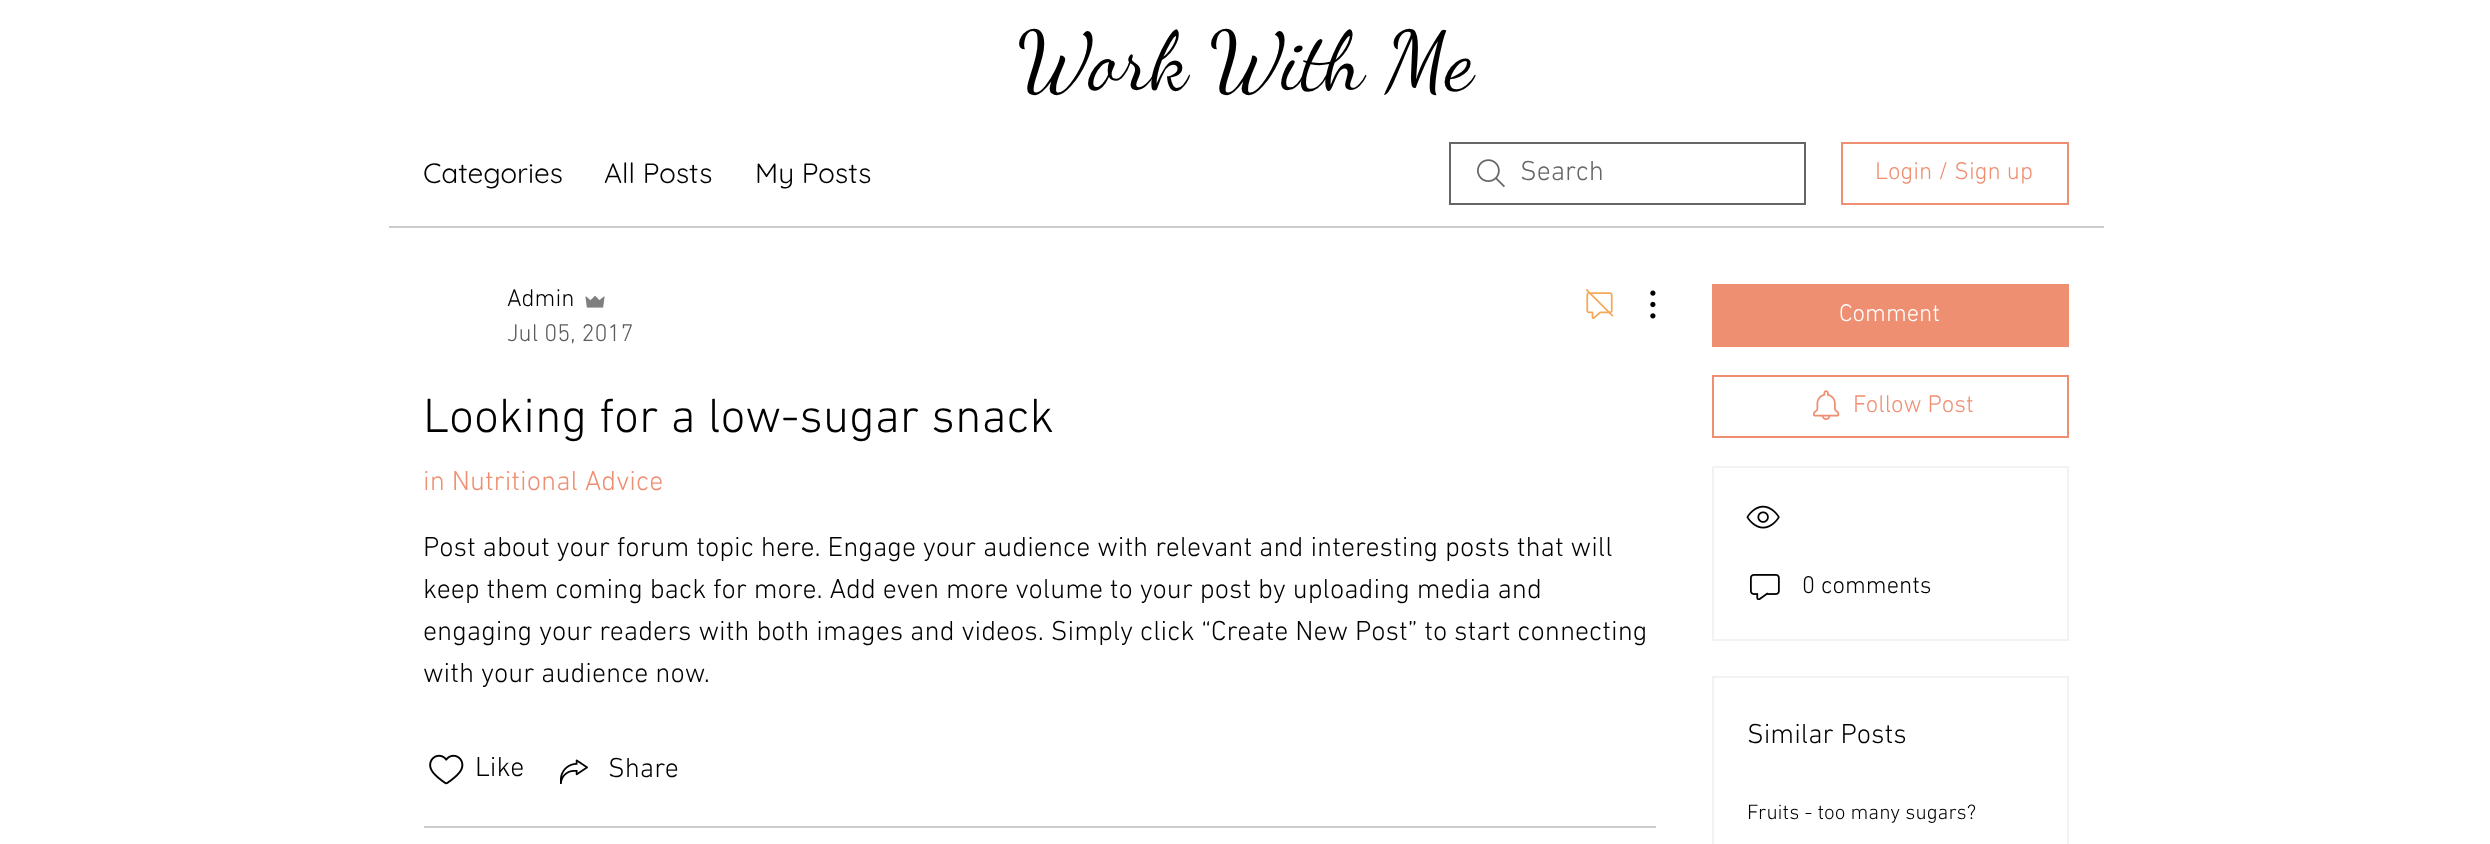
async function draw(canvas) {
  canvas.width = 2490;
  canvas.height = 844;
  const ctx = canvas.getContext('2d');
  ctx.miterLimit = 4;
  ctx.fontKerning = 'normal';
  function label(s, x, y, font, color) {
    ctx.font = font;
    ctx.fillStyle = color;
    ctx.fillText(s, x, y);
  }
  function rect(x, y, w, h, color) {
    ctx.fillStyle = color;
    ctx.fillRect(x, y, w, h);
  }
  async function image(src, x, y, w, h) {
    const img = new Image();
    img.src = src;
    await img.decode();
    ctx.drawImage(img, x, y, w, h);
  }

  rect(0, 0, 2490, 844, '#fff');
  label('Work With Me', 1017, 88, '82.25px Dancing Script', '#000');
  rect(389, 226, 1715, 2, '#ccc');
  label('Categories', 423, 183, '28px Quicksand', '#000');
  label('All Posts', 604, 183, '28px Quicksand', '#000');
  label('My Posts', 755, 183, '28px Quicksand', '#000');
  await image('assets/img1.png', 1477, 159, 28, 29);
  ctx.strokeStyle = '#666';
  ctx.lineWidth = 2;
  ctx.strokeRect(1450, 143, 355, 61);
  label('Search', 1520, 180, '300 28px "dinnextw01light"', '#666');
  ctx.strokeStyle = '#ef8f72';
  ctx.strokeRect(1842, 143, 226, 61);
  label('Login / Sign up', 1875, 179, '300 24.5px "dinnextw01light"', '#ef8f72');
  label('Admin', 507, 306, '300 24.5px "dinnextw01light"', '#000');
  await image('assets/img2.png', 585, 296, 20, 12);
  label('Jul 05, 2017', 507, 341, '300 24.5px "dinnextw01light"', '#5c5c5c');
  await image('assets/img3.png', 1586, 289, 28, 31);
  await image('assets/img4.png', 1650, 290, 6, 29);
  label('Looking for a low-sugar snack', 423, 432, '300 49px "dinnextw01light"', '#000');
  label('in Nutritional Advice', 423, 490, '300 28px "dinnextw01light"', '#ef8f72');
  label('Post about your forum topic here. Engage your audience with relevant and interesting posts that will', 423, 556, '300 28px "dinnextw01light"', '#000');
  label('keep them coming back for more. Add even more volume to your post by uploading media and', 423, 598, '300 28px "dinnextw01light"', '#000');
  label('engaging your readers with both images and videos. Simply click “Create New Post” to start connecting', 423, 640, '300 28px "dinnextw01light"', '#000');
  label('with your audience now.', 423, 682, '300 28px "dinnextw01light"', '#000');
  await image('assets/img5.png', 429, 754, 35, 31);
  label('Like', 475, 776, '300 28px "dinnextw01light"', '#000');
  await image('assets/img6.png', 560, 759, 28, 25);
  label('Share', 608, 777, '300 28px "dinnextw01light"', '#000');
  rect(424, 826, 1232, 2, '#ccc');
  rect(1712, 284, 357, 63, '#ef8f72');
  label('Comment', 1839, 321, '300 24.5px "dinnextw01light"', '#fff');
  ctx.strokeRect(1713, 376, 355, 61);
  await image('assets/img7.png', 1813, 390, 27, 30);
  label('Follow Post', 1853, 412, '300 24.5px "dinnextw01light"', '#ef8f72');
  ctx.strokeStyle = '#f2f2f2';
  ctx.strokeRect(1713, 467, 355, 173);
  await image('assets/img8.png', 1746, 505, 34, 24);
  await image('assets/img9.png', 1750, 574, 30, 26);
  label('0 comments', 1802, 593, '300 24.5px "dinnextw01light"', '#000');
  ctx.strokeRect(1713, 677, 355, 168);
  label('Similar Posts', 1747, 743, '300 28px "dinnextw01light"', '#000');
  label('Fruits - too many sugars?', 1747, 819, '300 21px "dinnextw01light"', '#000');
}

draw(document.querySelector('canvas'));
